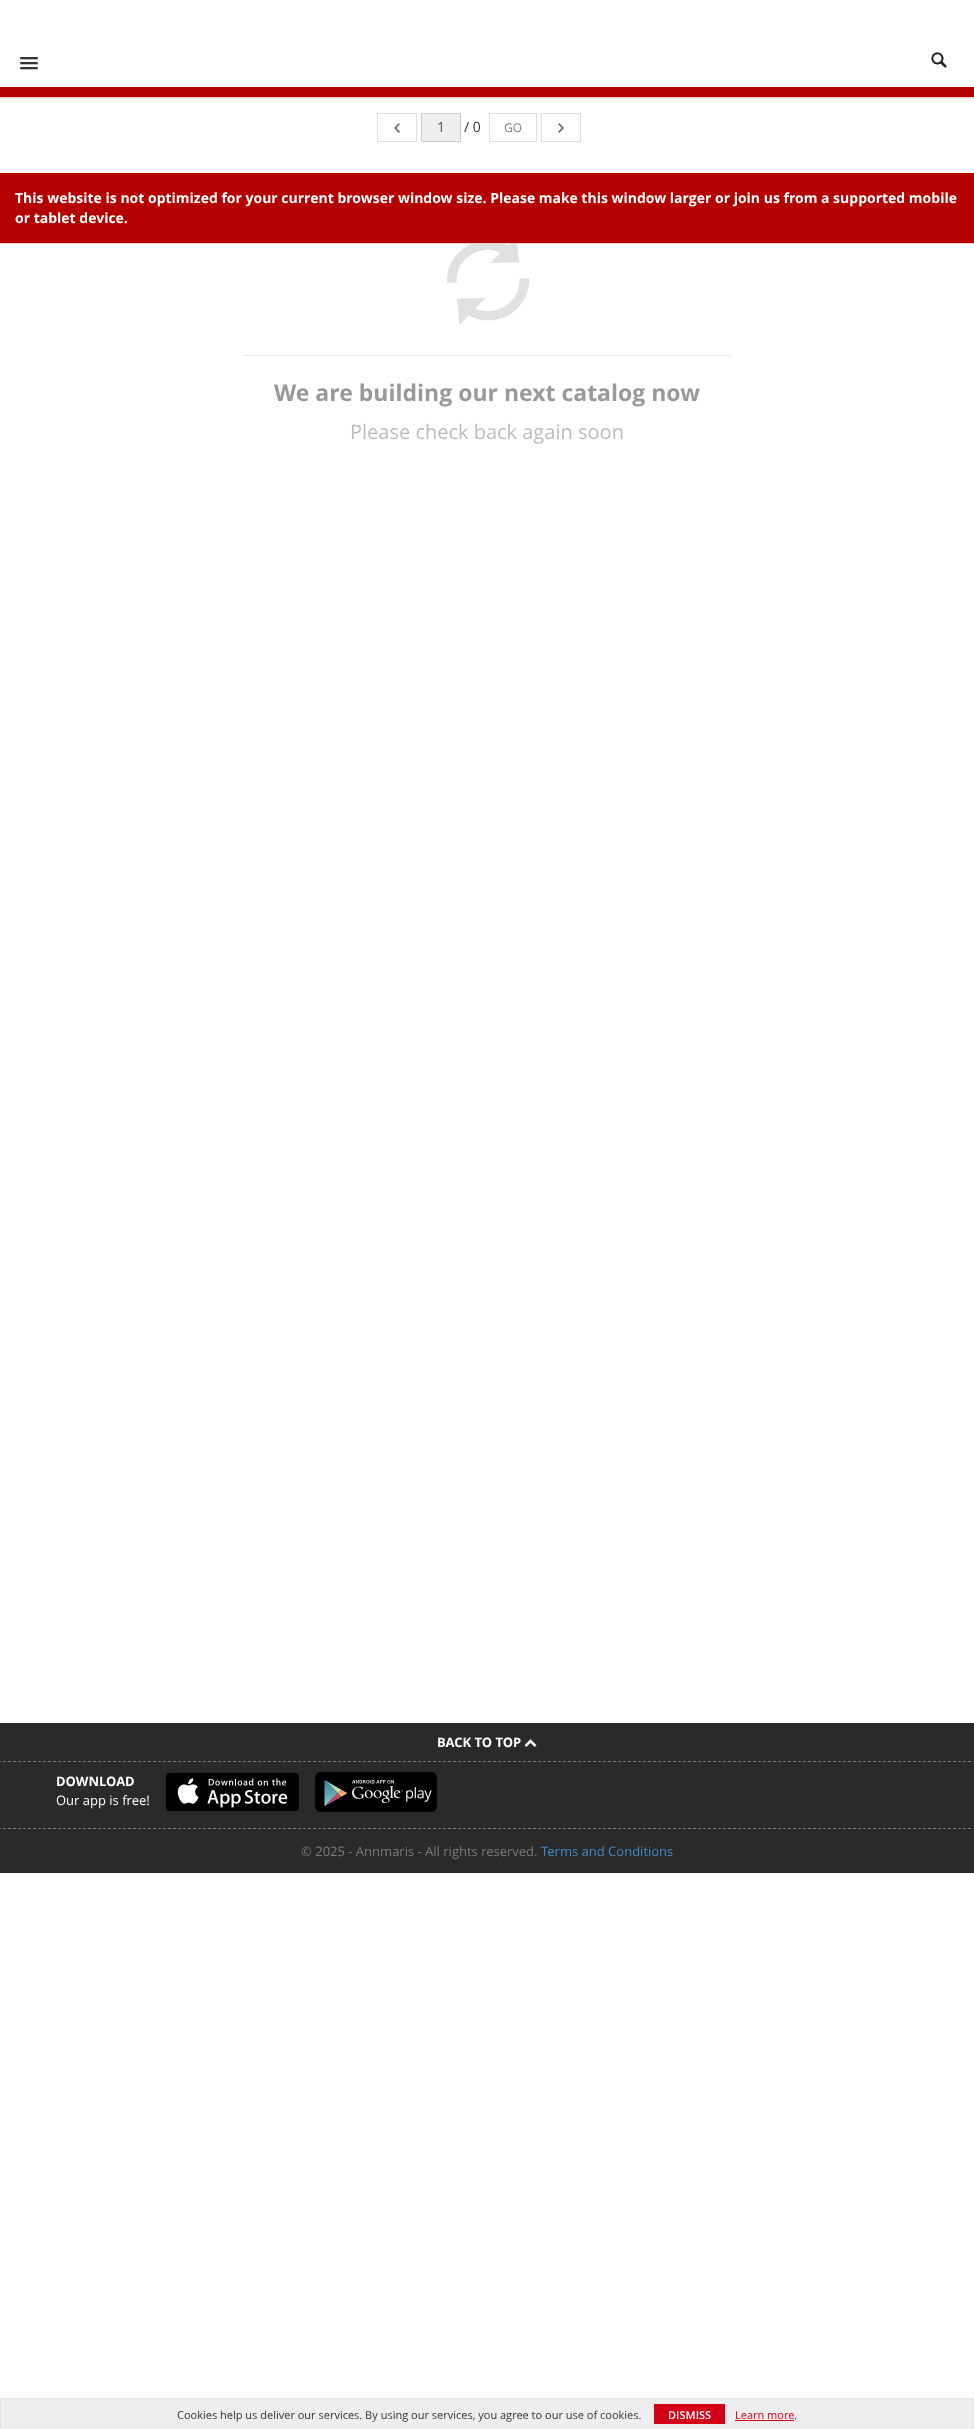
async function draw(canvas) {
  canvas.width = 974;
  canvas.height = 2429;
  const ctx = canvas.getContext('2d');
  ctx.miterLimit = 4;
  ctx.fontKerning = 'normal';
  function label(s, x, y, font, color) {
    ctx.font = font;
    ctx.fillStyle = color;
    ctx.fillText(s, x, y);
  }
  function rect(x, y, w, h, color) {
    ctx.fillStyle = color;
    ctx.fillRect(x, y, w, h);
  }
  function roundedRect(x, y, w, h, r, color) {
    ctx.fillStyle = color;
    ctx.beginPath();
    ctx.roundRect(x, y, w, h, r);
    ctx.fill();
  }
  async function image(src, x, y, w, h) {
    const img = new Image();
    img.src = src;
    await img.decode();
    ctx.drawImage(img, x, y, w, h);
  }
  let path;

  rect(0, 0, 974, 2429, '#fff');
  ctx.fillStyle = '#bfbfbf';
  path = new Path2D('M20 58.5C19 60.5 23.5 60 23.5 60H34.5C34.5 60 39 60.5 38 58.5C37 59.5 30.5 59 29 59C27.5 59 21 59.5 20 58.5Z');
  ctx.fill(path);
  roundedRect(20, 57, 18, 2, 1, '#333');
  ctx.fillStyle = '#bfbfbf';
  path = new Path2D('M20 63.5C19 65.5 23.5 65 23.5 65H34.5C34.5 65 39 65.5 38 63.5C37 64.5 30.5 64 29 64C27.5 64 21 64.5 20 63.5Z');
  ctx.fill(path);
  roundedRect(20, 62, 18, 2, 1, '#333');
  ctx.fillStyle = '#bfbfbf';
  path = new Path2D('M20 68.5C19 70.5 23.5 70 23.5 70H34.5C34.5 70 39 70.5 38 68.5C37 69.5 30.5 69 29 69C27.5 69 21 69.5 20 68.5Z');
  ctx.fill(path);
  roundedRect(20, 67, 18, 2, 1, '#333');
  await image('assets/img1.png', 931, 52, 16, 16);
  rect(0, 87, 974, 10, '#b50000');
  rect(0, 97, 974, 1, '#ebccd1');
  rect(0, 98, 974, 1, '#ebebeb');
  ctx.strokeStyle = '#dedede';
  ctx.strokeRect(377.5, 113.5, 39, 28);
  await image('assets/img2.png', 394, 123, 6, 10);
  ctx.fillStyle = '#eee';
  ctx.beginPath();
  ctx.rect(421.5, 113.5, 39, 28);
  ctx.fill();
  ctx.strokeStyle = '#ccc';
  ctx.stroke();
  label('1', 437, 132, '14px Open Sans', '#555');
  label('/ 0', 464, 132, '14px Open Sans', '#333');
  ctx.strokeStyle = '#dedede';
  ctx.strokeRect(489.5, 113.5, 47, 28);
  label('GO', 504, 132, '12px Open Sans', '#7c7c7c');
  ctx.strokeRect(541.5, 113.5, 39, 28);
  await image('assets/img3.png', 558, 123, 6, 10);
  await image('assets/img4.png', 447, 244, 82, 81);
  rect(244, 355, 487, 1, '#e7e7e7');
  label('We are building our next catalog now', 274, 401, 'bold 23px Open Sans', '#999');
  label('Please check back again soon', 350, 439, '20px Open Sans', '#bcbcbc');
  rect(0, 173, 974, 70, '#b50000');
  rect(0, 243, 974, 1, '#ebccd1');
  label('This website is not optimized for your current browser window size. Please make this window larger or join us from a supported mobile', 15, 203, 'bold 14px Open Sans', '#fff');
  label('or tablet device.', 15, 223, 'bold 14px Open Sans', '#fff');
  rect(0, 1723, 974, 150, '#2a2a2a');
  path = new Path2D('M-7 1761.5H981');
  ctx.strokeStyle = '#7c7c7c';
  ctx.setLineDash([3, 2]);
  ctx.stroke(path);
  label('BACK TO TOP', 437, 1747, 'bold 13px Open Sans', '#fff');
  await image('assets/img5.png', 524, 1739, 13, 8);
  path = new Path2D('M-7 1828.5H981');
  ctx.stroke(path);
  label('DOWNLOAD', 56, 1786, 'bold 13px Open Sans', '#fff');
  label('Our app is free!', 56, 1805, '13px Open Sans', '#fff');
  await image('assets/img6.png', 165, 1772, 134, 39);
  await image('assets/img7.png', 315, 1772, 122, 40);
  label('© 2025 - Annmaris - All rights reserved.', 301, 1856, '13px Open Sans', '#7c7c7c');
  label('Terms and Conditions', 541, 1856, '13px Open Sans', '#428bca');
  rect(1, 2399, 972, 30, '#eee');
  rect(0, 2398, 974, 1, '#e4e4e4');
  rect(973, 2398, 1, 31, '#e4e4e4');
  rect(0, 2398, 1, 31, '#e4e4e4');
  label('Cookies help us deliver our services. By using our services, you agree to our use of cookies.', 177, 2419, '11px Open Sans', '#333');
  rect(654, 2404, 71, 20, '#d20019');
  label('DISMISS', 668, 2419, '600 11px Open Sans', '#fff');
  label('Learn more', 735, 2419, '11px Open Sans', '#d20019');
  rect(735, 2420, 59, 1, '#d20019');
  label('.', 794, 2419, '11px Open Sans', '#333');
}

draw(document.querySelector('canvas'));
